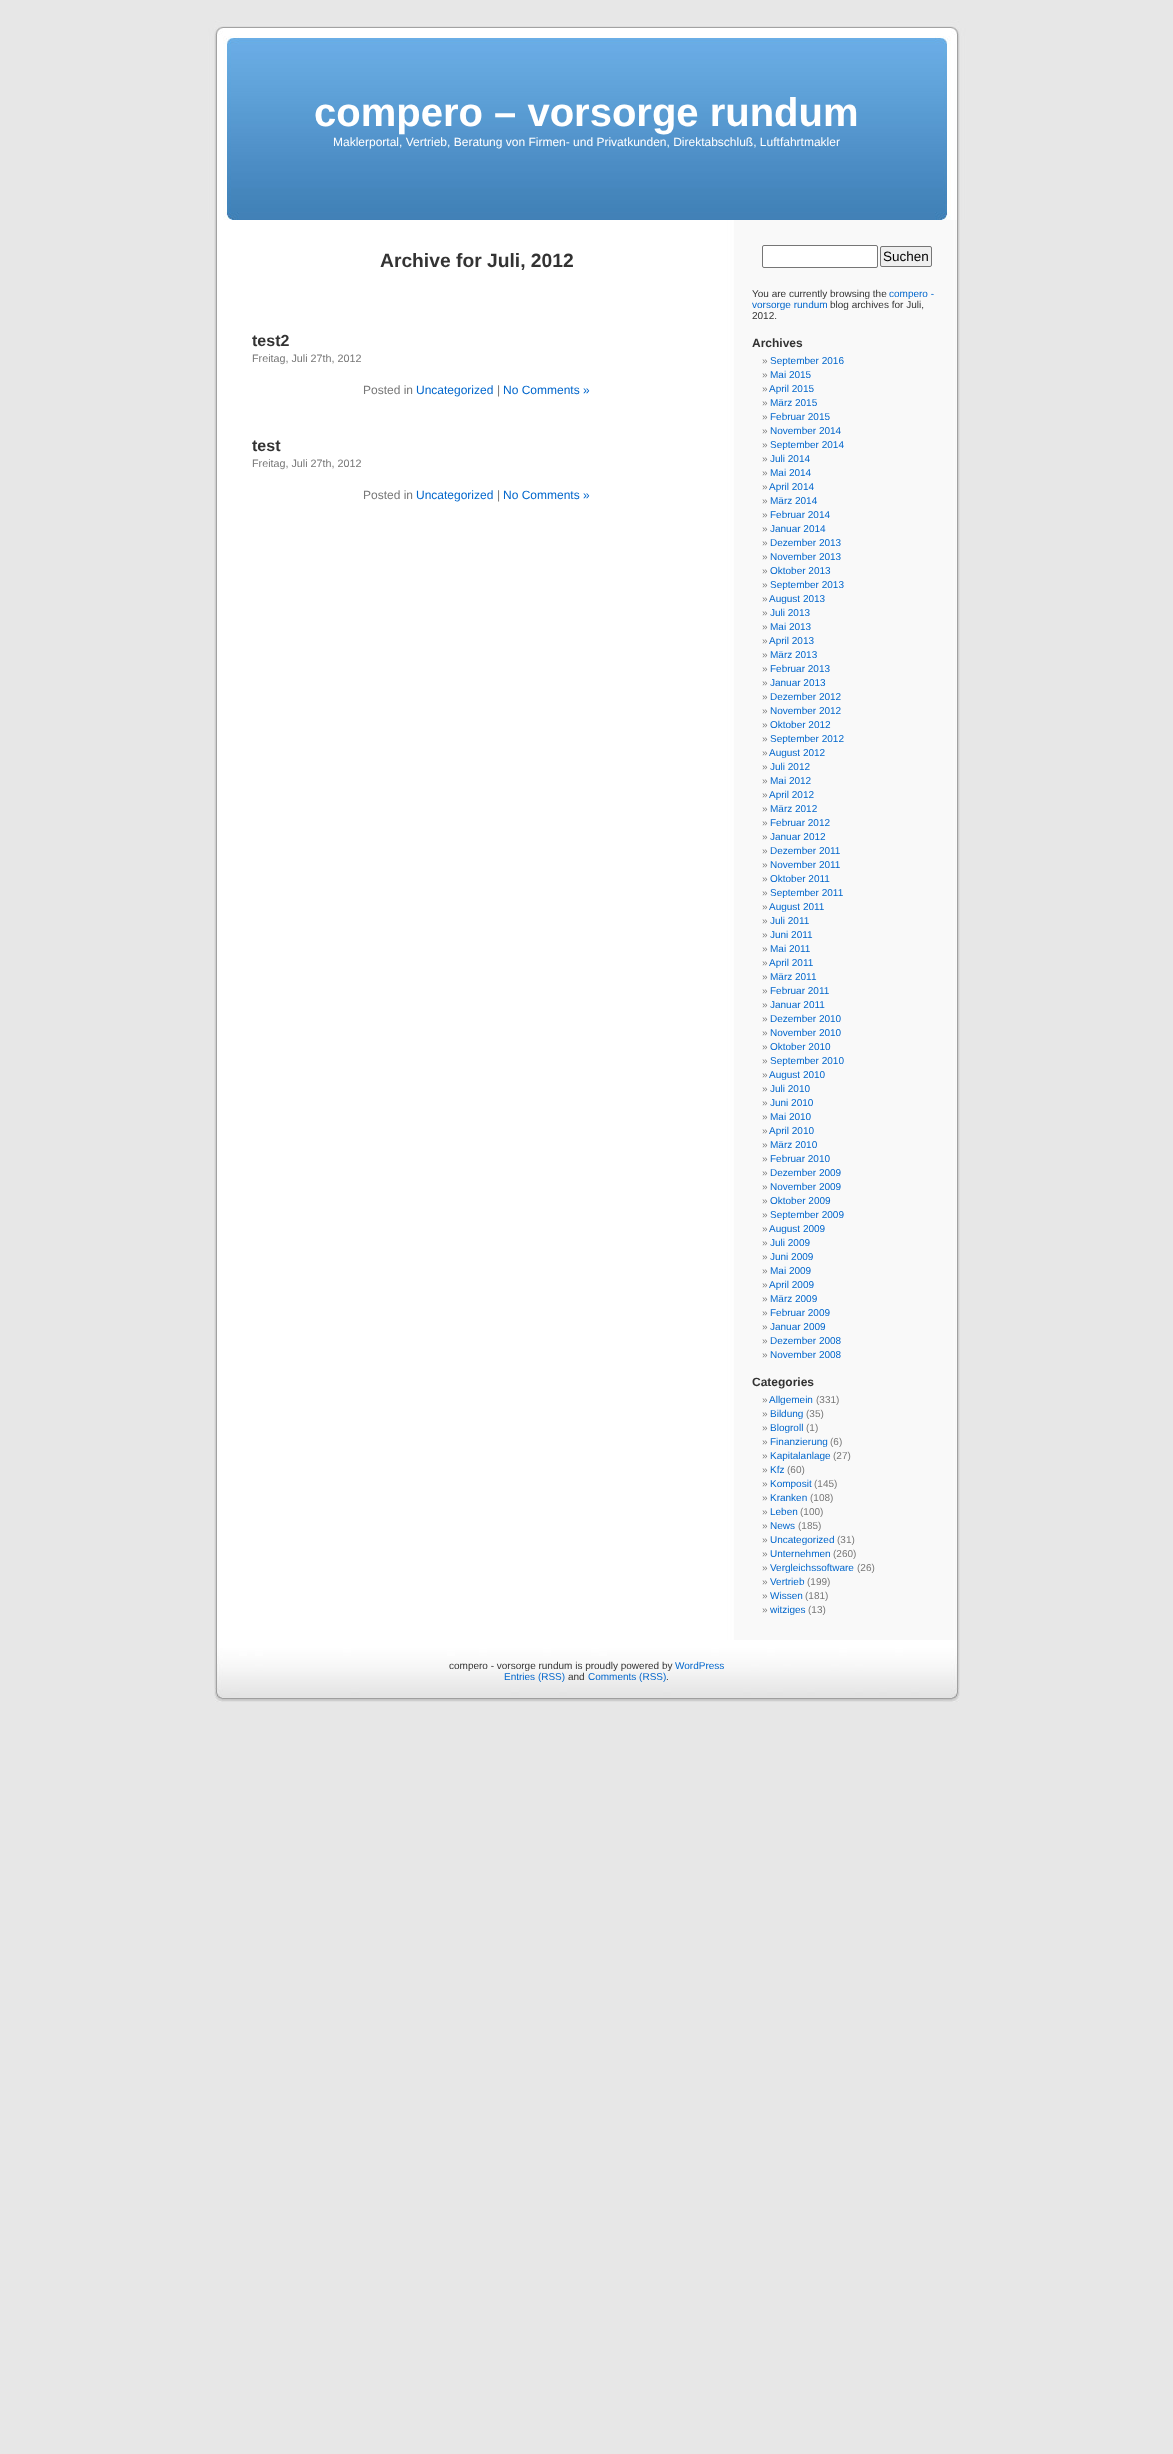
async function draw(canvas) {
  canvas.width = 1173;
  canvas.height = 2454;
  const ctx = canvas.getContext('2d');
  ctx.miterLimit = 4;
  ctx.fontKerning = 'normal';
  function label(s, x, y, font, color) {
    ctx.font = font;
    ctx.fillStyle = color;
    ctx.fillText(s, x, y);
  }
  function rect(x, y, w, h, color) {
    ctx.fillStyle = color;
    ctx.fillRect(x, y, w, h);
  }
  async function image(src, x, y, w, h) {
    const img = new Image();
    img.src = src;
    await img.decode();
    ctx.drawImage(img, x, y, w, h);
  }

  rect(0, 0, 1173, 2454, '#e7e7e7');
  await image('assets/img1.png', 214, 220, 746, 1420);
  await image('assets/img2.png', 208, 20, 758, 200);
  label('compero – vorsorge rundum', 314, 126, 'bold 40px Liberation Sans', '#fff');
  label('Maklerportal, Vertrieb, Beratung von Firmen- und Privatkunden, Direktabschluß, Luftfahrtmakler', 333, 146, '12px Liberation Sans', '#fff');
  label('Archive for Juli, 2012', 380, 267, 'bold 19.25px Liberation Sans', '#333');
  label('test2', 252, 346, 'bold 16px Liberation Sans', '#333');
  label('Freitag, Juli 27th, 2012', 252, 362, '10.75px Liberation Sans', '#777');
  label('Posted in', 363, 394, '12px Liberation Sans', '#777');
  label('Uncategorized', 416, 394, '12px Liberation Sans', '#06c');
  label('|', 497, 394, '12px Liberation Sans', '#777');
  label('No Comments »', 503, 394, '12px Liberation Sans', '#06c');
  label('test', 252, 451, 'bold 16px Liberation Sans', '#333');
  label('Freitag, Juli 27th, 2012', 252, 467, '10.75px Liberation Sans', '#777');
  label('Posted in', 363, 499, '12px Liberation Sans', '#777');
  label('Uncategorized', 416, 499, '12px Liberation Sans', '#06c');
  label('|', 497, 499, '12px Liberation Sans', '#777');
  label('No Comments »', 503, 499, '12px Liberation Sans', '#06c');
  ctx.fillStyle = '#fff';
  ctx.beginPath();
  ctx.roundRect(762.5, 245.5, 115, 22, 1.5);
  ctx.fill();
  ctx.strokeStyle = '#767676';
  ctx.stroke();
  ctx.fillStyle = '#efefef';
  ctx.beginPath();
  ctx.roundRect(880.5, 246.5, 51, 20, 1.5);
  ctx.fill();
  ctx.stroke();
  label('Suchen', 883, 261, '13.5px Liberation Sans', '#000');
  label('You are currently browsing the', 752, 297, '10px Liberation Sans', '#333');
  label('compero -', 889, 297, '10px Liberation Sans', '#06c');
  label('vorsorge rundum', 752, 308, '10px Liberation Sans', '#06c');
  label('blog archives for Juli,', 830, 308, '10px Liberation Sans', '#333');
  label('2012.', 752, 319, '10px Liberation Sans', '#333');
  label('Archives', 752, 347, 'bold 12px Liberation Sans', '#333');
  label('»', 762, 364, '10px Liberation Sans', '#777');
  label('September 2016', 770, 364, '10px Liberation Sans', '#06c');
  label('»', 762, 378, '10px Liberation Sans', '#777');
  label('Mai 2015', 770, 378, '10px Liberation Sans', '#06c');
  label('»', 762, 392, '10px Liberation Sans', '#777');
  label('April 2015', 769, 392, '10px Liberation Sans', '#06c');
  label('»', 762, 406, '10px Liberation Sans', '#777');
  label('März 2015', 770, 406, '10px Liberation Sans', '#06c');
  label('»', 762, 420, '10px Liberation Sans', '#777');
  label('Februar 2015', 770, 420, '10px Liberation Sans', '#06c');
  label('»', 762, 434, '10px Liberation Sans', '#777');
  label('November 2014', 770, 434, '10px Liberation Sans', '#06c');
  label('»', 762, 448, '10px Liberation Sans', '#777');
  label('September 2014', 770, 448, '10px Liberation Sans', '#06c');
  label('»', 762, 462, '10px Liberation Sans', '#777');
  label('Juli 2014', 770, 462, '10px Liberation Sans', '#06c');
  label('»', 762, 476, '10px Liberation Sans', '#777');
  label('Mai 2014', 770, 476, '10px Liberation Sans', '#06c');
  label('»', 762, 490, '10px Liberation Sans', '#777');
  label('April 2014', 769, 490, '10px Liberation Sans', '#06c');
  label('»', 762, 504, '10px Liberation Sans', '#777');
  label('März 2014', 770, 504, '10px Liberation Sans', '#06c');
  label('»', 762, 518, '10px Liberation Sans', '#777');
  label('Februar 2014', 770, 518, '10px Liberation Sans', '#06c');
  label('»', 762, 532, '10px Liberation Sans', '#777');
  label('Januar 2014', 770, 532, '10px Liberation Sans', '#06c');
  label('»', 762, 546, '10px Liberation Sans', '#777');
  label('Dezember 2013', 770, 546, '10px Liberation Sans', '#06c');
  label('»', 762, 560, '10px Liberation Sans', '#777');
  label('November 2013', 770, 560, '10px Liberation Sans', '#06c');
  label('»', 762, 574, '10px Liberation Sans', '#777');
  label('Oktober 2013', 770, 574, '10px Liberation Sans', '#06c');
  label('»', 762, 588, '10px Liberation Sans', '#777');
  label('September 2013', 770, 588, '10px Liberation Sans', '#06c');
  label('»', 762, 602, '10px Liberation Sans', '#777');
  label('August 2013', 769, 602, '10px Liberation Sans', '#06c');
  label('»', 762, 616, '10px Liberation Sans', '#777');
  label('Juli 2013', 770, 616, '10px Liberation Sans', '#06c');
  label('»', 762, 630, '10px Liberation Sans', '#777');
  label('Mai 2013', 770, 630, '10px Liberation Sans', '#06c');
  label('»', 762, 644, '10px Liberation Sans', '#777');
  label('April 2013', 769, 644, '10px Liberation Sans', '#06c');
  label('»', 762, 658, '10px Liberation Sans', '#777');
  label('März 2013', 770, 658, '10px Liberation Sans', '#06c');
  label('»', 762, 672, '10px Liberation Sans', '#777');
  label('Februar 2013', 770, 672, '10px Liberation Sans', '#06c');
  label('»', 762, 686, '10px Liberation Sans', '#777');
  label('Januar 2013', 770, 686, '10px Liberation Sans', '#06c');
  label('»', 762, 700, '10px Liberation Sans', '#777');
  label('Dezember 2012', 770, 700, '10px Liberation Sans', '#06c');
  label('»', 762, 714, '10px Liberation Sans', '#777');
  label('November 2012', 770, 714, '10px Liberation Sans', '#06c');
  label('»', 762, 728, '10px Liberation Sans', '#777');
  label('Oktober 2012', 770, 728, '10px Liberation Sans', '#06c');
  label('»', 762, 742, '10px Liberation Sans', '#777');
  label('September 2012', 770, 742, '10px Liberation Sans', '#06c');
  label('»', 762, 756, '10px Liberation Sans', '#777');
  label('August 2012', 769, 756, '10px Liberation Sans', '#06c');
  label('»', 762, 770, '10px Liberation Sans', '#777');
  label('Juli 2012', 770, 770, '10px Liberation Sans', '#06c');
  label('»', 762, 784, '10px Liberation Sans', '#777');
  label('Mai 2012', 770, 784, '10px Liberation Sans', '#06c');
  label('»', 762, 798, '10px Liberation Sans', '#777');
  label('April 2012', 769, 798, '10px Liberation Sans', '#06c');
  label('»', 762, 812, '10px Liberation Sans', '#777');
  label('März 2012', 770, 812, '10px Liberation Sans', '#06c');
  label('»', 762, 826, '10px Liberation Sans', '#777');
  label('Februar 2012', 770, 826, '10px Liberation Sans', '#06c');
  label('»', 762, 840, '10px Liberation Sans', '#777');
  label('Januar 2012', 770, 840, '10px Liberation Sans', '#06c');
  label('»', 762, 854, '10px Liberation Sans', '#777');
  label('Dezember 2011', 770, 854, '10px Liberation Sans', '#06c');
  label('»', 762, 868, '10px Liberation Sans', '#777');
  label('November 2011', 770, 868, '10px Liberation Sans', '#06c');
  label('»', 762, 882, '10px Liberation Sans', '#777');
  label('Oktober 2011', 770, 882, '10px Liberation Sans', '#06c');
  label('»', 762, 896, '10px Liberation Sans', '#777');
  label('September 2011', 770, 896, '10px Liberation Sans', '#06c');
  label('»', 762, 910, '10px Liberation Sans', '#777');
  label('August 2011', 769, 910, '10px Liberation Sans', '#06c');
  label('»', 762, 924, '10px Liberation Sans', '#777');
  label('Juli 2011', 770, 924, '10px Liberation Sans', '#06c');
  label('»', 762, 938, '10px Liberation Sans', '#777');
  label('Juni 2011', 770, 938, '10px Liberation Sans', '#06c');
  label('»', 762, 952, '10px Liberation Sans', '#777');
  label('Mai 2011', 770, 952, '10px Liberation Sans', '#06c');
  label('»', 762, 966, '10px Liberation Sans', '#777');
  label('April 2011', 769, 966, '10px Liberation Sans', '#06c');
  label('»', 762, 980, '10px Liberation Sans', '#777');
  label('März 2011', 770, 980, '10px Liberation Sans', '#06c');
  label('»', 762, 994, '10px Liberation Sans', '#777');
  label('Februar 2011', 770, 994, '10px Liberation Sans', '#06c');
  label('»', 762, 1008, '10px Liberation Sans', '#777');
  label('Januar 2011', 770, 1008, '10px Liberation Sans', '#06c');
  label('»', 762, 1022, '10px Liberation Sans', '#777');
  label('Dezember 2010', 770, 1022, '10px Liberation Sans', '#06c');
  label('»', 762, 1036, '10px Liberation Sans', '#777');
  label('November 2010', 770, 1036, '10px Liberation Sans', '#06c');
  label('»', 762, 1050, '10px Liberation Sans', '#777');
  label('Oktober 2010', 770, 1050, '10px Liberation Sans', '#06c');
  label('»', 762, 1064, '10px Liberation Sans', '#777');
  label('September 2010', 770, 1064, '10px Liberation Sans', '#06c');
  label('»', 762, 1078, '10px Liberation Sans', '#777');
  label('August 2010', 769, 1078, '10px Liberation Sans', '#06c');
  label('»', 762, 1092, '10px Liberation Sans', '#777');
  label('Juli 2010', 770, 1092, '10px Liberation Sans', '#06c');
  label('»', 762, 1106, '10px Liberation Sans', '#777');
  label('Juni 2010', 770, 1106, '10px Liberation Sans', '#06c');
  label('»', 762, 1120, '10px Liberation Sans', '#777');
  label('Mai 2010', 770, 1120, '10px Liberation Sans', '#06c');
  label('»', 762, 1134, '10px Liberation Sans', '#777');
  label('April 2010', 769, 1134, '10px Liberation Sans', '#06c');
  label('»', 762, 1148, '10px Liberation Sans', '#777');
  label('März 2010', 770, 1148, '10px Liberation Sans', '#06c');
  label('»', 762, 1162, '10px Liberation Sans', '#777');
  label('Februar 2010', 770, 1162, '10px Liberation Sans', '#06c');
  label('»', 762, 1176, '10px Liberation Sans', '#777');
  label('Dezember 2009', 770, 1176, '10px Liberation Sans', '#06c');
  label('»', 762, 1190, '10px Liberation Sans', '#777');
  label('November 2009', 770, 1190, '10px Liberation Sans', '#06c');
  label('»', 762, 1204, '10px Liberation Sans', '#777');
  label('Oktober 2009', 770, 1204, '10px Liberation Sans', '#06c');
  label('»', 762, 1218, '10px Liberation Sans', '#777');
  label('September 2009', 770, 1218, '10px Liberation Sans', '#06c');
  label('»', 762, 1232, '10px Liberation Sans', '#777');
  label('August 2009', 769, 1232, '10px Liberation Sans', '#06c');
  label('»', 762, 1246, '10px Liberation Sans', '#777');
  label('Juli 2009', 770, 1246, '10px Liberation Sans', '#06c');
  label('»', 762, 1260, '10px Liberation Sans', '#777');
  label('Juni 2009', 770, 1260, '10px Liberation Sans', '#06c');
  label('»', 762, 1274, '10px Liberation Sans', '#777');
  label('Mai 2009', 770, 1274, '10px Liberation Sans', '#06c');
  label('»', 762, 1288, '10px Liberation Sans', '#777');
  label('April 2009', 769, 1288, '10px Liberation Sans', '#06c');
  label('»', 762, 1302, '10px Liberation Sans', '#777');
  label('März 2009', 770, 1302, '10px Liberation Sans', '#06c');
  label('»', 762, 1316, '10px Liberation Sans', '#777');
  label('Februar 2009', 770, 1316, '10px Liberation Sans', '#06c');
  label('»', 762, 1330, '10px Liberation Sans', '#777');
  label('Januar 2009', 770, 1330, '10px Liberation Sans', '#06c');
  label('»', 762, 1344, '10px Liberation Sans', '#777');
  label('Dezember 2008', 770, 1344, '10px Liberation Sans', '#06c');
  label('»', 762, 1358, '10px Liberation Sans', '#777');
  label('November 2008', 770, 1358, '10px Liberation Sans', '#06c');
  label('Categories', 752, 1386, 'bold 12px Liberation Sans', '#333');
  label('»', 762, 1403, '10px Liberation Sans', '#777');
  label('Allgemein', 769, 1403, '10px Liberation Sans', '#06c');
  label('(331)', 816, 1403, '10px Liberation Sans', '#777');
  label('»', 762, 1417, '10px Liberation Sans', '#777');
  label('Bildung', 770, 1417, '10px Liberation Sans', '#06c');
  label('(35)', 806, 1417, '10px Liberation Sans', '#777');
  label('»', 762, 1431, '10px Liberation Sans', '#777');
  label('Blogroll', 770, 1431, '10px Liberation Sans', '#06c');
  label('(1)', 806, 1431, '10px Liberation Sans', '#777');
  label('»', 762, 1445, '10px Liberation Sans', '#777');
  label('Finanzierung', 770, 1445, '10px Liberation Sans', '#06c');
  label('(6)', 830, 1445, '10px Liberation Sans', '#777');
  label('»', 762, 1459, '10px Liberation Sans', '#777');
  label('Kapitalanlage', 770, 1459, '10px Liberation Sans', '#06c');
  label('(27)', 833, 1459, '10px Liberation Sans', '#777');
  label('»', 762, 1473, '10px Liberation Sans', '#777');
  label('Kfz', 770, 1473, '10px Liberation Sans', '#06c');
  label('(60)', 787, 1473, '10px Liberation Sans', '#777');
  label('»', 762, 1487, '10px Liberation Sans', '#777');
  label('Komposit', 770, 1487, '10px Liberation Sans', '#06c');
  label('(145)', 814, 1487, '10px Liberation Sans', '#777');
  label('»', 762, 1501, '10px Liberation Sans', '#777');
  label('Kranken', 770, 1501, '10px Liberation Sans', '#06c');
  label('(108)', 810, 1501, '10px Liberation Sans', '#777');
  label('»', 762, 1515, '10px Liberation Sans', '#777');
  label('Leben', 770, 1515, '10px Liberation Sans', '#06c');
  label('(100)', 800, 1515, '10px Liberation Sans', '#777');
  label('»', 762, 1529, '10px Liberation Sans', '#777');
  label('News', 770, 1529, '10px Liberation Sans', '#06c');
  label('(185)', 798, 1529, '10px Liberation Sans', '#777');
  label('»', 762, 1543, '10px Liberation Sans', '#777');
  label('Uncategorized', 770, 1543, '10px Liberation Sans', '#06c');
  label('(31)', 837, 1543, '10px Liberation Sans', '#777');
  label('»', 762, 1557, '10px Liberation Sans', '#777');
  label('Unternehmen', 770, 1557, '10px Liberation Sans', '#06c');
  label('(260)', 833, 1557, '10px Liberation Sans', '#777');
  label('»', 762, 1571, '10px Liberation Sans', '#777');
  label('Vergleichssoftware', 770, 1571, '10px Liberation Sans', '#06c');
  label('(26)', 857, 1571, '10px Liberation Sans', '#777');
  label('»', 762, 1585, '10px Liberation Sans', '#777');
  label('Vertrieb', 770, 1585, '10px Liberation Sans', '#06c');
  label('(199)', 807, 1585, '10px Liberation Sans', '#777');
  label('»', 762, 1599, '10px Liberation Sans', '#777');
  label('Wissen', 770, 1599, '10px Liberation Sans', '#06c');
  label('(181)', 805, 1599, '10px Liberation Sans', '#777');
  label('»', 762, 1613, '10px Liberation Sans', '#777');
  label('witziges', 770, 1613, '10px Liberation Sans', '#06c');
  label('(13)', 808, 1613, '10px Liberation Sans', '#777');
  await image('assets/img3.png', 214, 1640, 746, 62);
  label('compero - vorsorge rundum is proudly powered by', 449, 1669, '10px Liberation Sans', '#333');
  label('WordPress', 675, 1669, '10px Liberation Sans', '#06c');
  label('Entries (RSS)', 504, 1680, '10px Liberation Sans', '#06c');
  label('and', 568, 1680, '10px Liberation Sans', '#333');
  label('Comments (RSS)', 588, 1680, '10px Liberation Sans', '#06c');
  label('.', 666, 1680, '10px Liberation Sans', '#333');
}

draw(document.querySelector('canvas'));
